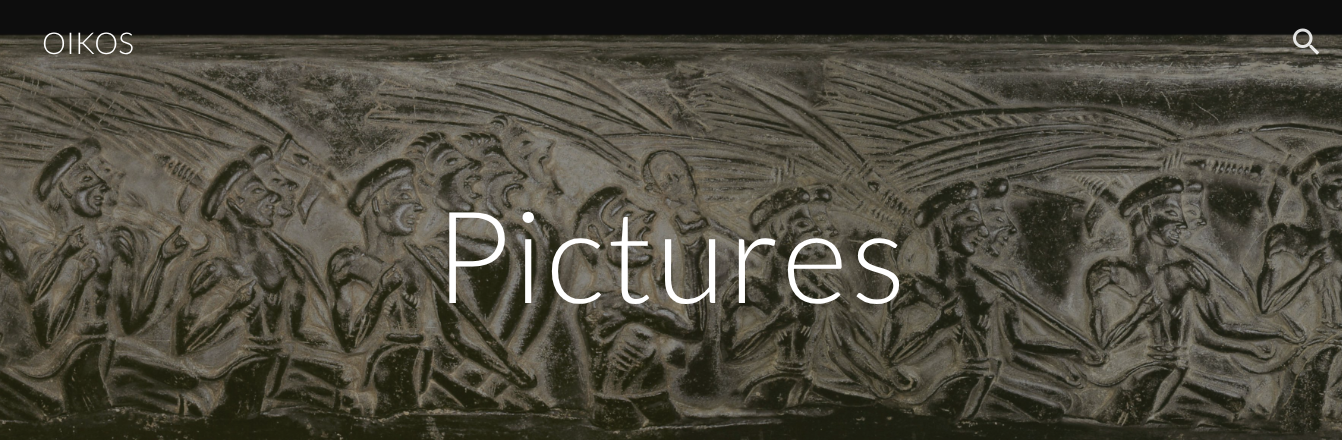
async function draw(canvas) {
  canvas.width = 1342;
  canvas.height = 440;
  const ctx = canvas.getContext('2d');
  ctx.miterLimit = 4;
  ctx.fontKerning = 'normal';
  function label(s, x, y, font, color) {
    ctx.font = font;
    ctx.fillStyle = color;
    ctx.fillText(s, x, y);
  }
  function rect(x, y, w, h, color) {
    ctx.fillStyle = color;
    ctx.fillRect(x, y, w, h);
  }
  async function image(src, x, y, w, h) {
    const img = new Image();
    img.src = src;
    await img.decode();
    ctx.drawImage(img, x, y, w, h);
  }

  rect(0, 0, 1342, 440, '#fff');
  await image('assets/img2.png', 0, 0, 1342, 440);
  label('OIKOS', 42, 54, '300 30px Lato', '#fff');
  await image('assets/img1.png', 1293, 28, 27, 27);
  ctx.letterSpacing = '3px';
  label('Pictures', 434, 303, '300 128px Lato', '#fff');
}

draw(document.querySelector('canvas'));
